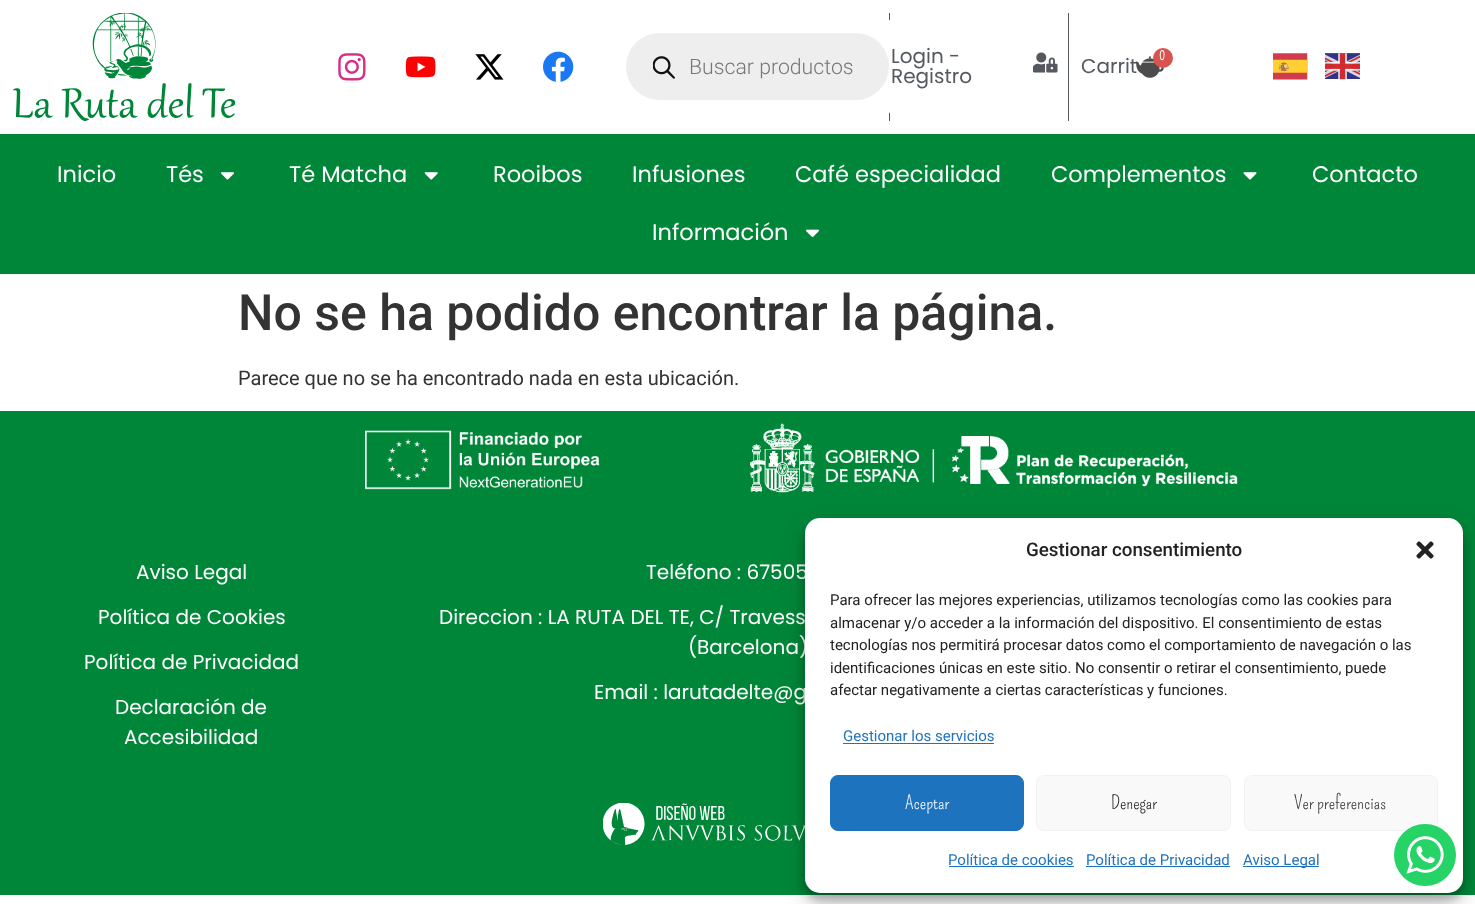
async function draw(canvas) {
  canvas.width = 1475;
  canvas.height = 904;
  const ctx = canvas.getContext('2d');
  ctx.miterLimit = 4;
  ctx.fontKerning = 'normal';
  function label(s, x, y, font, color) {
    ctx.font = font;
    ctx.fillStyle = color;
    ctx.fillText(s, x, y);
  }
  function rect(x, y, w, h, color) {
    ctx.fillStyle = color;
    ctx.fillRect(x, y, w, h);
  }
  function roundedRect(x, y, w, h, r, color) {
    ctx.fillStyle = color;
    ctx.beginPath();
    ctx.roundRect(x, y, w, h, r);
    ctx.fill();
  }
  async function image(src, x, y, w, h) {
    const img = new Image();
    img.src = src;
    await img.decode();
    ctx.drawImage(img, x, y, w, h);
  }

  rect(0, 0, 1475, 904, '#fff');
  await image('assets/img1.png', 13, 13, 223, 108);
  await image('assets/img2.png', 338, 53, 28, 28);
  await image('assets/img3.png', 405, 56, 31, 22);
  await image('assets/img4.png', 475, 54, 29, 26);
  await image('assets/img5.png', 543, 51, 31, 31);
  rect(889, 13, 1, 108, '#54595f');
  roundedRect(614, 20, 287, 93, 13, '#fff');
  roundedRect(626, 33, 263, 67, 33.5, '#eee');
  await image('assets/img6.png', 653, 56, 22, 23);
  label('Buscar productos', 689, 74, '300 21.25px Roboto', '#777');
  rect(1068, 13, 1, 108, '#54595f');
  label('Login -', 891, 63, '20px Poppins', '#54595f');
  label('Registro', 891, 83, '20px Poppins', '#54595f');
  await image('assets/img7.png', 1033, 52, 25, 21);
  label('Carrit', 1081, 73, '20px Poppins', '#54595f');
  await image('assets/img8.png', 1135, 56, 29, 22);
  ctx.fillStyle = '#d9534f';
  ctx.beginPath();
  ctx.arc(1163, 58, 10, 0, 2 * Math.PI);
  ctx.fill();
  label('0', 1159, 60, 'bold 12px Pompiere', '#fff');
  await image('assets/img9.png', 1273, 53, 35, 27);
  await image('assets/img10.png', 1325, 53, 35, 27);
  rect(0, 134, 1475, 140, '#008639');
  label('Inicio', 57, 182, '22.5px Poppins', '#fff');
  label('Tés', 166, 182, '22.5px Poppins', '#fff');
  await image('assets/img11.png', 221, 172, 13, 8);
  label('Té Matcha', 289, 182, '22.5px Poppins', '#fff');
  await image('assets/img12.png', 424, 172, 14, 8);
  label('Rooibos', 493, 182, '22.5px Poppins', '#fff');
  label('Infusiones', 632, 182, '22.5px Poppins', '#fff');
  label('Café especialidad', 795, 182, '22.5px Poppins', '#fff');
  label('Complementos', 1051, 182, '22.5px Poppins', '#fff');
  await image('assets/img13.png', 1243, 172, 14, 8);
  label('Contacto', 1312, 182, '22.5px Poppins', '#fff');
  label('Información', 652, 240, '22.5px Poppins', '#fff');
  await image('assets/img14.png', 806, 229, 13, 8);
  label('No se ha podido encontrar la página.', 238, 330, '500 50px Roboto', '#333');
  label('Parece que no se ha encontrado nada en esta ubicación.', 238, 385, '20px Roboto', '#333');
  rect(0, 411, 1475, 484, '#008639');
  await image('assets/img15.png', 365, 430, 235, 60);
  await image('assets/img16.png', 750, 423, 488, 70);
  label('Aviso Legal', 136, 579, '20px Poppins', '#fff');
  label('Política de Cookies', 98, 624, '20px Poppins', '#fff');
  label('Política de Privacidad', 84, 669, '20px Poppins', '#fff');
  label('Declaración de', 115, 714, '20px Poppins', '#fff');
  label('Accesibilidad', 124, 744, '20px Poppins', '#fff');
  label('Teléfono : 67505', 646, 579, '20px Poppins', '#fff');
  label('Direccion : LA RUTA DEL TE, C/ Travess', 439, 624, '20px Poppins', '#fff');
  label('(Barcelona)', 688, 654, '20px Poppins', '#fff');
  label('Email : larutadelte@g', 594, 699, '20px Poppins', '#fff');
  await image('assets/img17.png', 603, 803, 202, 42);
  ctx.fillStyle = '#0000003b';
  ctx.filter = 'blur(4px)';
  ctx.beginPath();
  ctx.roundRect(805, 525, 658, 375, 15);
  ctx.fill();
  ctx.filter = 'none';
  ctx.fillStyle = '#00000030';
  ctx.filter = 'blur(12.5px)';
  ctx.beginPath();
  ctx.roundRect(805, 530, 658, 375, 15);
  ctx.fill();
  ctx.filter = 'none';
  roundedRect(805, 518, 658, 375, 15, '#fff');
  label('Gestionar consentimiento', 1026, 556, '500 18.75px Roboto', '#222');
  await image('assets/img18.png', 1416, 541, 18, 18);
  label('Para ofrecer las mejores experiencias, utilizamos tecnologías como las cookies para', 830, 605, '15px Roboto', '#222');
  label('almacenar y/o acceder a la información del dispositivo. El consentimiento de estas', 830, 628, '15px Roboto', '#222');
  label('tecnologías nos permitirá procesar datos como el comportamiento de navegación o las', 830, 650, '15px Roboto', '#222');
  label('identificaciones únicas en este sitio. No consentir o retirar el consentimiento, puede', 830, 673, '15px Roboto', '#222');
  label('afectar negativamente a ciertas características y funciones.', 830, 695, '15px Roboto', '#222');
  label('Gestionar los servicios', 843, 741, '15px Roboto', '#1e73be');
  rect(843, 743, 151, 1, '#1e73be');
  ctx.beginPath();
  ctx.roundRect(830.5, 775.5, 193, 55, 7.5);
  ctx.fill();
  ctx.strokeStyle = '#1e73be';
  ctx.stroke();
  label('Aceptar', 905, 809, '18.75px Pompiere', '#fff');
  ctx.fillStyle = '#f9f9f9';
  ctx.beginPath();
  ctx.roundRect(1036.5, 775.5, 194, 55, 7.5);
  ctx.fill();
  ctx.strokeStyle = '#f2f2f2';
  ctx.stroke();
  label('Denegar', 1111, 809, '18.75px Pompiere', '#222');
  ctx.fillStyle = '#f9f9f9';
  ctx.beginPath();
  ctx.roundRect(1244.5, 775.5, 193, 55, 7.5);
  ctx.fill();
  ctx.stroke();
  label('Ver preferencias', 1294, 809, '18.75px Pompiere', '#333');
  label('Política de cookies', 948, 865, '15px Roboto', '#1e73be');
  rect(949, 866, 125, 1, '#1e73be');
  label('Política de Privacidad', 1086, 865, '15px Roboto', '#1e73be');
  rect(1086, 866, 144, 1, '#1e73be');
  rect(1243, 866, 76, 1, '#1e73be');
  label('Aviso Legal', 1243, 865, '15px Roboto', '#1e73be');
  ctx.fillStyle = '#25d366';
  ctx.beginPath();
  ctx.arc(1425, 855, 31, 0, 2 * Math.PI);
  ctx.fill();
  await image('assets/img19.png', 1406, 836, 38, 38);
}

draw(document.querySelector('canvas'));
